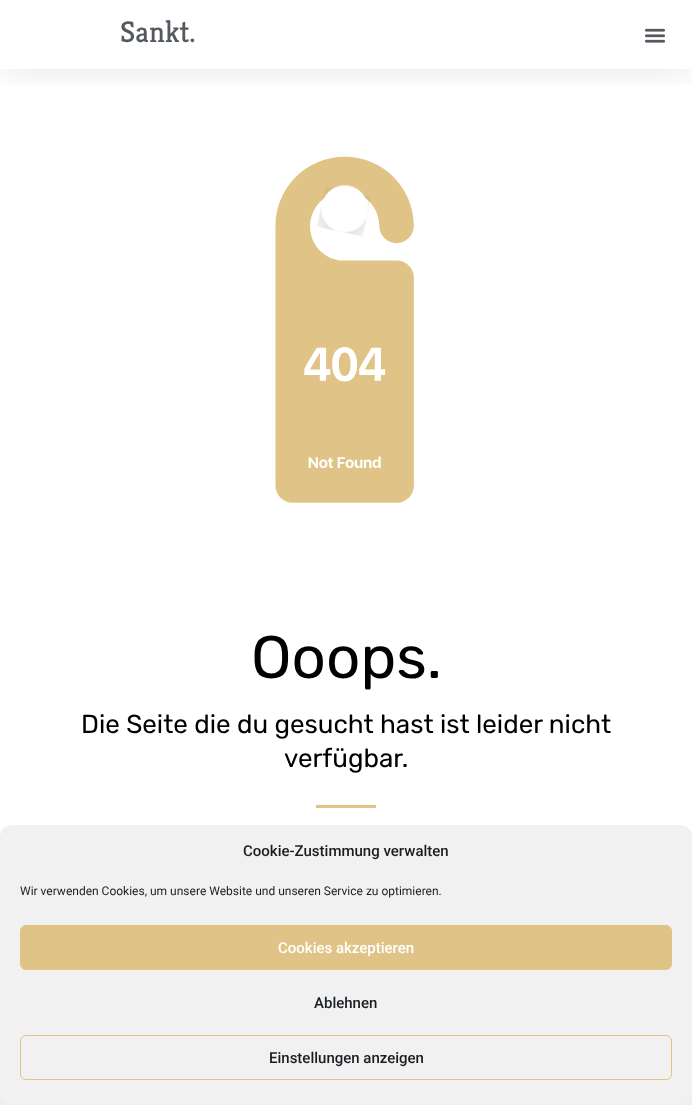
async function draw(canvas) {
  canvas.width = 692;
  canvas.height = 1105;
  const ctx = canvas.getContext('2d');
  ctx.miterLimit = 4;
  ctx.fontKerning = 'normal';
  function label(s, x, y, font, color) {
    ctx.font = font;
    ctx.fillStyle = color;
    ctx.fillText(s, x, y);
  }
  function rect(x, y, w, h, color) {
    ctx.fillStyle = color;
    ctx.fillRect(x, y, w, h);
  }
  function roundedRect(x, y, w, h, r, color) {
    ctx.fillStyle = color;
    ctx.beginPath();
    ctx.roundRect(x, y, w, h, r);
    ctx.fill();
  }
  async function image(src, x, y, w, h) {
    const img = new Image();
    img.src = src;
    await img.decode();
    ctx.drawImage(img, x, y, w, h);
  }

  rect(0, 0, 692, 1105, '#fff');
  ctx.save();
  ctx.beginPath();
  ctx.rect(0, 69, 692, 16);
  ctx.clip();
  ctx.fillStyle = '#0000001a';
  ctx.filter = 'blur(19px)';
  ctx.beginPath();
  ctx.rect(0, 0, 692, 69);
  ctx.fill();
  ctx.filter = 'none';
  ctx.restore();
  label('Sankt.', 120, 42, '30px Kreon', '#54595f');
  await image('assets/img1.png', 644, 28, 22, 15);
  await image('assets/img2.png', 275, 156, 139, 347);
  label('Ooops.', 251, 678, '60px Rubik', '#000');
  label('Die Seite die du gesucht hast ist leider nicht', 81, 733, '26px Rubik', '#000');
  label('verfügbar.', 284, 767, '26px Rubik', '#000');
  rect(316, 805, 60, 3, '#e0c387');
  rect(0, 1093, 692, 12, '#eee');
  roundedRect(0, 825, 692, 280, 12, '#f1f1f1');
  label('Cookie-Zustimmung verwalten', 243, 856, '500 15px Roboto', '#191e23');
  label('Wir verwenden Cookies, um unsere Website und unseren Service zu optimieren.', 20, 895, '12px Roboto', '#191e23');
  ctx.fillStyle = '#e0c387';
  ctx.beginPath();
  ctx.roundRect(20.5, 925.5, 651, 44, 5.5);
  ctx.fill();
  ctx.strokeStyle = '#e0c387';
  ctx.stroke();
  label('Cookies akzeptieren', 278, 953, '500 15px Roboto', '#fff');
  label('Ablehnen', 314, 1008, '500 15px Roboto', '#191e23');
  ctx.beginPath();
  ctx.roundRect(20.5, 1035.5, 651, 44, 5.5);
  ctx.stroke();
  label('Einstellungen anzeigen', 269, 1063, '500 15px Roboto', '#191e23');
}

draw(document.querySelector('canvas'));
